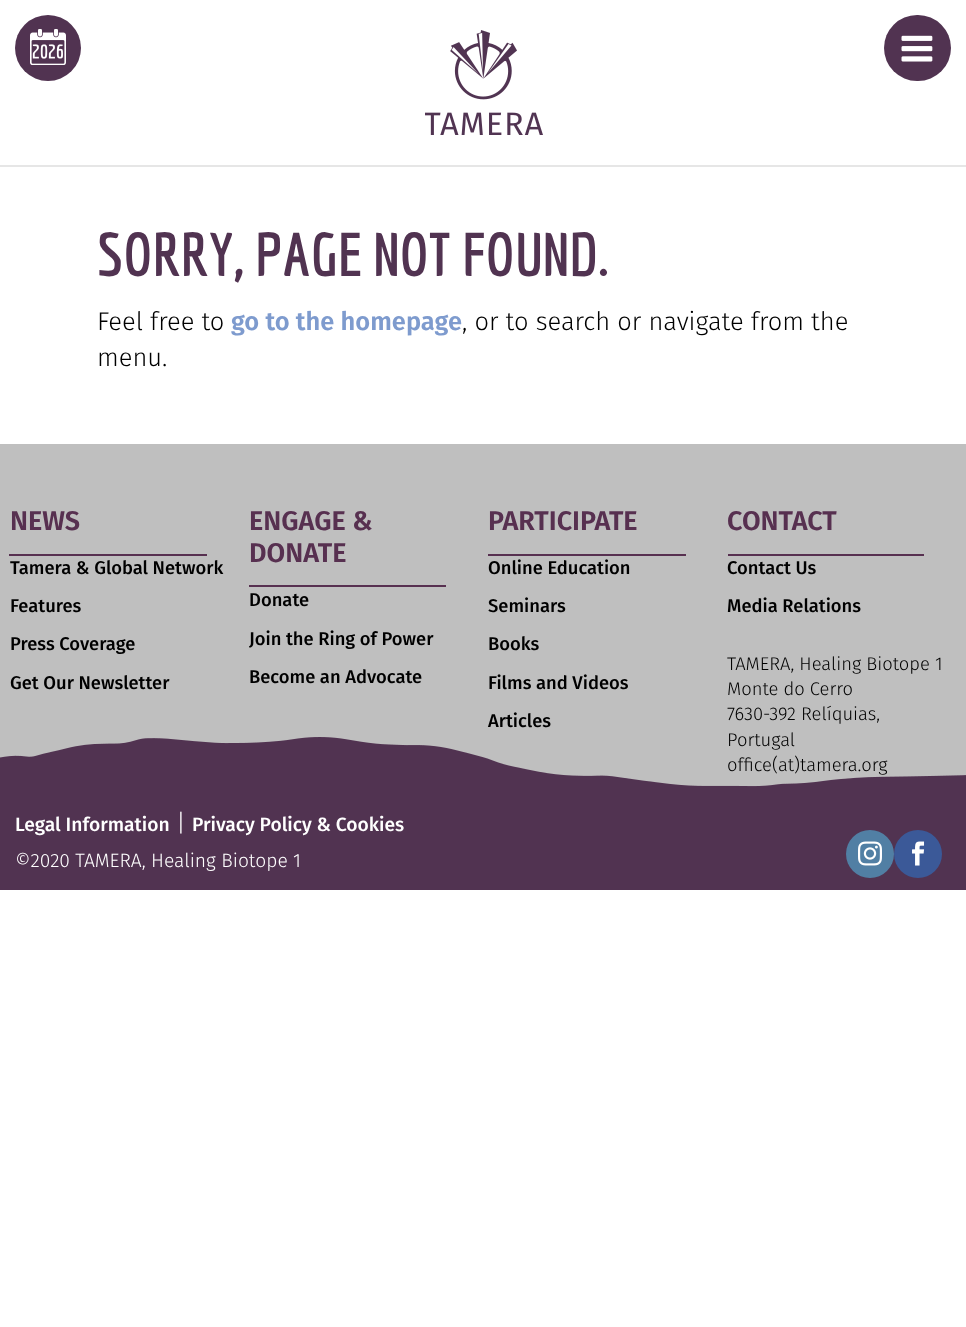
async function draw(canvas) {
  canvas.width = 966;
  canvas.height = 1327;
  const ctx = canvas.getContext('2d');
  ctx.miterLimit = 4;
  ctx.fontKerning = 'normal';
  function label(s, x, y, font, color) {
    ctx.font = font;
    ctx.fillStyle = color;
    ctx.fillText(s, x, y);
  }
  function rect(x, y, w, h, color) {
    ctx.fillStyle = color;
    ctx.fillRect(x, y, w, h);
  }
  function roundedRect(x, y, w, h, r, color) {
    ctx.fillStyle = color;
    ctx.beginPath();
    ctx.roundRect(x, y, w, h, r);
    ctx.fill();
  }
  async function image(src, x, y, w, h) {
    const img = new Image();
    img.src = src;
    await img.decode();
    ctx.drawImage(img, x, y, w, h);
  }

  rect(0, 0, 966, 1327, '#fff');
  roundedRect(884, 15, 67, 66, 33, '#513351');
  await image('assets/img1.png', 901, 35, 32, 27);
  rect(0, 165, 966, 2, '#e6e6e6');
  ctx.fillStyle = '#513351';
  ctx.beginPath();
  ctx.arc(48, 48, 33, 0, 2 * Math.PI);
  ctx.fill();
  await image('assets/img2.png', 30, 29, 36, 36);
  await image('assets/img3.png', 425, 30, 118, 105);
  label('SORRY, PAGE NOT FOUND.', 97, 276, 'bold 60px Economica', '#513351');
  label('Feel free to', 97, 330, '300 25.5px Fira Sans', '#000');
  label('go to the homepage', 231, 330, '600 25.5px Fira Sans', '#7e9bce');
  label(', or to search or navigate from the', 462, 330, '300 25.5px Fira Sans', '#000');
  label('menu.', 97, 366, '300 25.5px Fira Sans', '#000');
  rect(0, 444, 966, 343, '#bfbfbf');
  rect(9, 554, 198, 2, '#573050');
  label('NEWS', 10, 530, '600 27px Fira Sans', '#573050');
  label('Tamera & Global Network', 10, 574, '500 18.4px Fira Sans', '#000');
  label('Features', 10, 612, '500 18.4px Fira Sans', '#000');
  label('Press Coverage', 10, 650, '500 18.4px Fira Sans', '#000');
  label('Get Our Newsletter', 10, 689, '500 18.4px Fira Sans', '#000');
  rect(249, 585, 197, 2, '#573050');
  label('ENGAGE &', 249, 530, '600 27px Fira Sans', '#573050');
  label('DONATE', 249, 562, '600 27px Fira Sans', '#573050');
  label('Donate', 249, 606, '500 18.4px Fira Sans', '#000');
  label('Join the Ring of Power', 249, 645, '500 18.4px Fira Sans', '#000');
  label('Become an Advocate', 249, 683, '500 18.4px Fira Sans', '#000');
  rect(488, 554, 198, 2, '#573050');
  label('PARTICIPATE', 488, 530, '600 27px Fira Sans', '#573050');
  label('Online Education', 488, 574, '500 18.4px Fira Sans', '#000');
  label('Seminars', 488, 612, '500 18.4px Fira Sans', '#000');
  label('Books', 488, 650, '500 18.4px Fira Sans', '#000');
  label('Films and Videos', 488, 689, '500 18.4px Fira Sans', '#000');
  label('Articles', 488, 727, '500 18.4px Fira Sans', '#000');
  rect(728, 554, 196, 2, '#573050');
  label('CONTACT', 727, 530, '600 27px Fira Sans', '#573050');
  label('Contact Us', 727, 574, '500 18.4px Fira Sans', '#000');
  label('Media Relations', 727, 612, '500 18.4px Fira Sans', '#000');
  label('TAMERA, Healing Biotope 1', 727, 670, '300 18.4px Fira Sans', '#000');
  label('Monte do Cerro', 727, 695, '300 18.4px Fira Sans', '#000');
  label('7630-392 Relíquias,', 727, 720, '300 18.4px Fira Sans', '#000');
  await image('assets/img4.png', 0, 737, 966, 69);
  label('Portugal', 727, 746, '300 18.4px Fira Sans', '#000');
  label('office(at)tamera.org', 727, 771, '300 18.4px Fira Sans', '#000');
  rect(0, 806, 966, 84, '#513351');
  label('Legal Information', 15, 831, '500 19.25px Fira Sans', '#fff');
  label('|', 176, 831, '300 24px Fira Sans', '#fff');
  label('Privacy Policy & Cookies', 192, 831, '500 19.25px Fira Sans', '#fff');
  label('©2020 TAMERA, Healing Biotope 1', 15, 867, '300 19.25px Fira Sans', '#fff');
  ctx.fillStyle = '#517fa4';
  ctx.beginPath();
  ctx.arc(870, 854, 24, 0, 2 * Math.PI);
  ctx.fill();
  await image('assets/img5.png', 858, 841, 24, 25);
  ctx.fillStyle = '#3b5998';
  ctx.beginPath();
  ctx.arc(918, 854, 24, 0, 2 * Math.PI);
  ctx.fill();
  await image('assets/img6.png', 912, 841, 13, 25);
}

draw(document.querySelector('canvas'));
